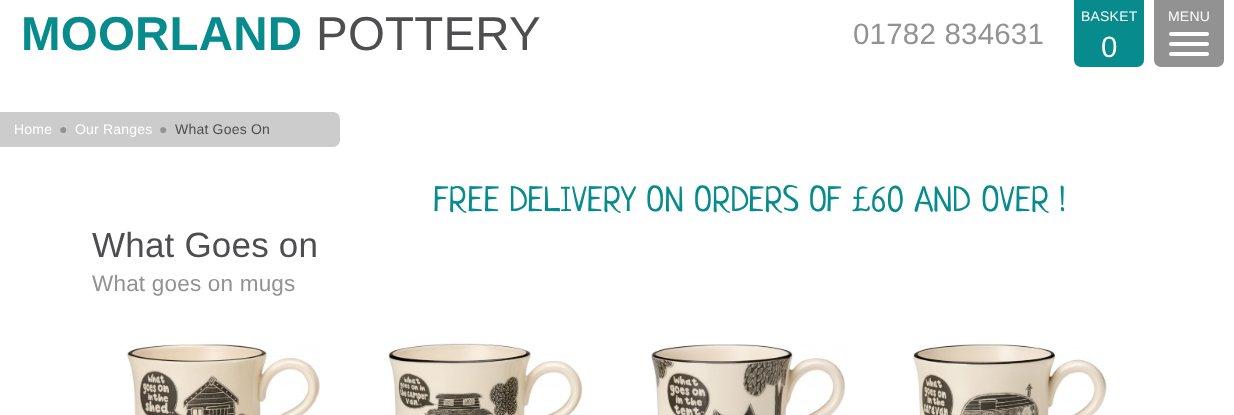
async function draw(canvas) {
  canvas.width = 1234;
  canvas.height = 415;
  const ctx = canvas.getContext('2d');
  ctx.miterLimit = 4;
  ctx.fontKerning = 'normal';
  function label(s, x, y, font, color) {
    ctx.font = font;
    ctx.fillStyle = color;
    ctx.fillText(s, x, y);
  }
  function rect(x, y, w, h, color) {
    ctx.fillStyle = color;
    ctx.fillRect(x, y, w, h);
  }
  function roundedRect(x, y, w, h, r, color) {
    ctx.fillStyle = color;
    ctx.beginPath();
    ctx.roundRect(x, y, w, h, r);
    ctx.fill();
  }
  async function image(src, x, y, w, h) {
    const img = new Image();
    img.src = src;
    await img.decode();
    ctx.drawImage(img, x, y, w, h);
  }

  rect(0, 0, 1234, 415, '#fff');
  ctx.letterSpacing = '0.2px';
  label('MOORLAND', 21, 50, 'bold 47.5px Liberation Sans', '#078b8d');
  label('POTTERY', 316, 50, '47.5px Liberation Sans', '#4e4e50');
  label('01782 834631', 853, 44, '29.5px Liberation Sans', '#929292');
  ctx.fillStyle = '#078b8d';
  ctx.beginPath();
  ctx.roundRect(1074, 0, 70, 67, [0, 0, 7, 7]);
  ctx.fill();
  label('BASKET', 1081, 21, '14px Liberation Sans', '#fff');
  label('0', 1101, 57, '29.5px Liberation Sans', '#fff');
  ctx.fillStyle = '#929292';
  ctx.beginPath();
  ctx.roundRect(1154, 0, 70, 67, [0, 0, 7, 7]);
  ctx.fill();
  label('MENU', 1168, 21, '14px Liberation Sans', '#fff');
  roundedRect(1169, 52, 40, 4, 2, '#fff');
  roundedRect(1169, 32, 40, 4, 2, '#fff');
  roundedRect(1169, 42, 40, 4, 2, '#fff');
  ctx.fillStyle = '#ccc';
  ctx.beginPath();
  ctx.roundRect(0, 112, 340, 35, [0, 7, 7, 0]);
  ctx.fill();
  label('Home', 14, 134, '14px Liberation Sans', '#fff');
  label('●', 59, 134, '14px Liberation Sans', '#929292');
  label('Our Ranges', 75, 134, '14px Liberation Sans', '#fff');
  label('●', 159, 134, '14px Liberation Sans', '#929292');
  label('What Goes On', 175, 134, '14px Liberation Sans', '#4e4e50');
  label('FREE DELIVERY ON ORDERS OF £60 AND OVER !', 433, 211, '35px Neucha', '#078b8d');
  label('What Goes on', 92, 257, '35px Liberation Sans', '#4e4e50');
  label('What goes on mugs', 92, 291, '22.5px Liberation Sans', '#929292');
  await image('assets/img1.png', 126, 343, 194, 72);
  await image('assets/img2.png', 388, 343, 195, 72);
  await image('assets/img3.png', 651, 344, 195, 71);
  await image('assets/img4.png', 913, 343, 194, 72);
}

draw(document.querySelector('canvas'));
